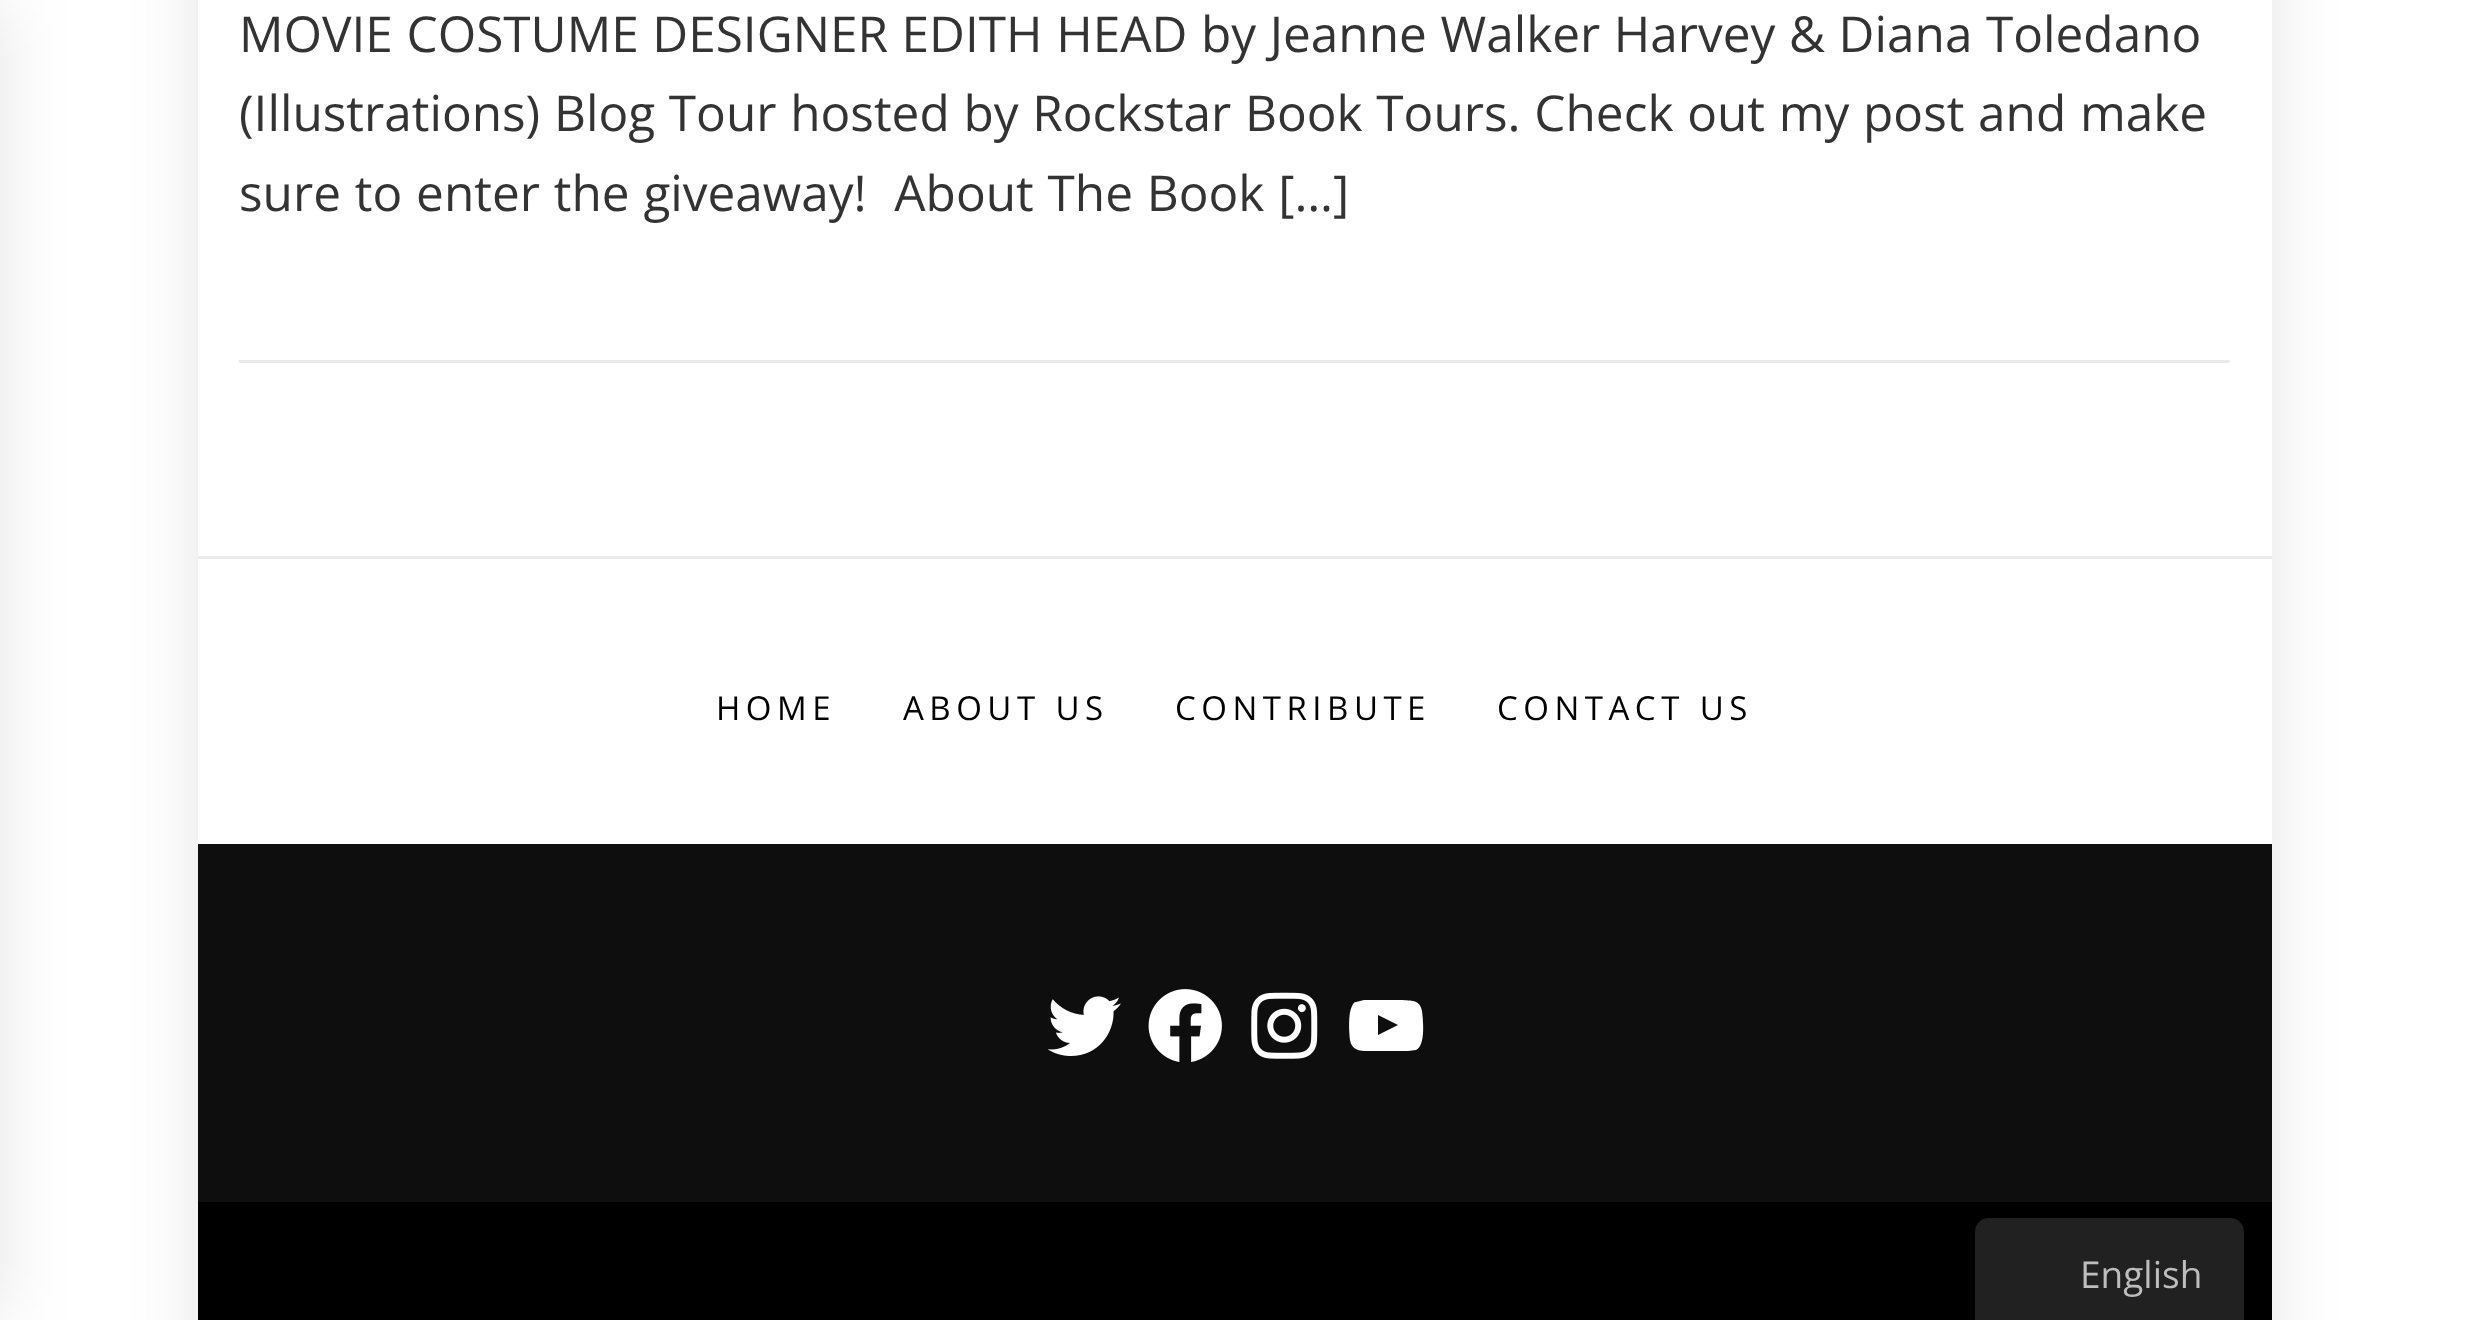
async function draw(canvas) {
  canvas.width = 2469;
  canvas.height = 1320;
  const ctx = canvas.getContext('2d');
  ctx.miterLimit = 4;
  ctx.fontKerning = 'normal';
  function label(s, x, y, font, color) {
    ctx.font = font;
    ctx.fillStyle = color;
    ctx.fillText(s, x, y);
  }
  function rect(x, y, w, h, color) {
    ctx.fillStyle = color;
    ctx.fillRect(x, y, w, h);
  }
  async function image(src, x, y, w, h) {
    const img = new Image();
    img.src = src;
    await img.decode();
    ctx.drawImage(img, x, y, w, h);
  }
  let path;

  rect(0, 0, 2469, 1320, '#fff');
  ctx.fillStyle = '#0000001a';
  ctx.filter = 'blur(34.5px)';
  ctx.beginPath();
  ctx.rect(198, -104, 2074, 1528);
  ctx.fill();
  ctx.filter = 'none';
  rect(198, 0, 2074, 844, '#fff');
  ctx.fillStyle = '#0000001a';
  ctx.filter = 'blur(34.5px)';
  ctx.beginPath();
  ctx.rect(-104, 0, 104, 1320);
  ctx.fill();
  ctx.filter = 'none';
  rect(198, 556, 2074, 3, '#eaeaea');
  rect(239, 360, 1991, 3, '#eaeaea');
  ctx.wordSpacing = '0.75px';
  label('MOVIE COSTUME DESIGNER EDITH HEAD by Jeanne Walker Harvey & Diana Toledano', 239, 52, '49.5px Open Sans', '#333');
  ctx.wordSpacing = '0.9px';
  label('(Illustrations) Blog Tour hosted by Rockstar Book Tours. Check out my post and make', 239, 131, '49.5px Open Sans', '#333');
  ctx.wordSpacing = '1px';
  label('sure to enter the giveaway!  About The Book […]', 239, 211, '49.5px Open Sans', '#333');
  ctx.letterSpacing = '5.5px';
  ctx.wordSpacing = '0px';
  label('HOME', 716, 720, '33px Open Sans', '#000');
  ctx.wordSpacing = '0.75px';
  label('ABOUT US', 903, 720, '33px Open Sans', '#000');
  ctx.wordSpacing = '0px';
  label('CONTRIBUTE', 1175, 720, '33px Open Sans', '#000');
  ctx.wordSpacing = '0.75px';
  label('CONTACT US', 1497, 720, '33px Open Sans', '#000');
  rect(198, 844, 2074, 358, '#0e0e0e');
  await image('assets/img1.png', 1047, 996, 74, 60);
  await image('assets/img2.png', 1148, 989, 74, 73);
  await image('assets/img3.png', 1251, 992, 67, 67);
  ctx.fillStyle = '#fff';
  path = new Path2D('M1422 1011C1420 1000 1413 1001 1403 1000H1381H1364L1356 1002C1354 1002 1353 1004 1352 1006C1348 1013 1349 1032 1350 1040C1352 1052 1362 1051 1372 1051H1391H1408L1416 1050C1426 1046 1423 1019 1422 1011ZM1378 1035V1015L1398 1025Z');
  ctx.fill(path);
  rect(198, 1202, 2074, 118, '#000');
  ctx.fillStyle = '#212121';
  ctx.beginPath();
  ctx.roundRect(1975, 1218, 269, 102, [14, 14, 0, 0]);
  ctx.fill();
  ctx.letterSpacing = '0px';
  ctx.wordSpacing = '0px';
  label('English', 2080, 1288, '37px Open Sans', '#bdbdbd');
}

draw(document.querySelector('canvas'));
